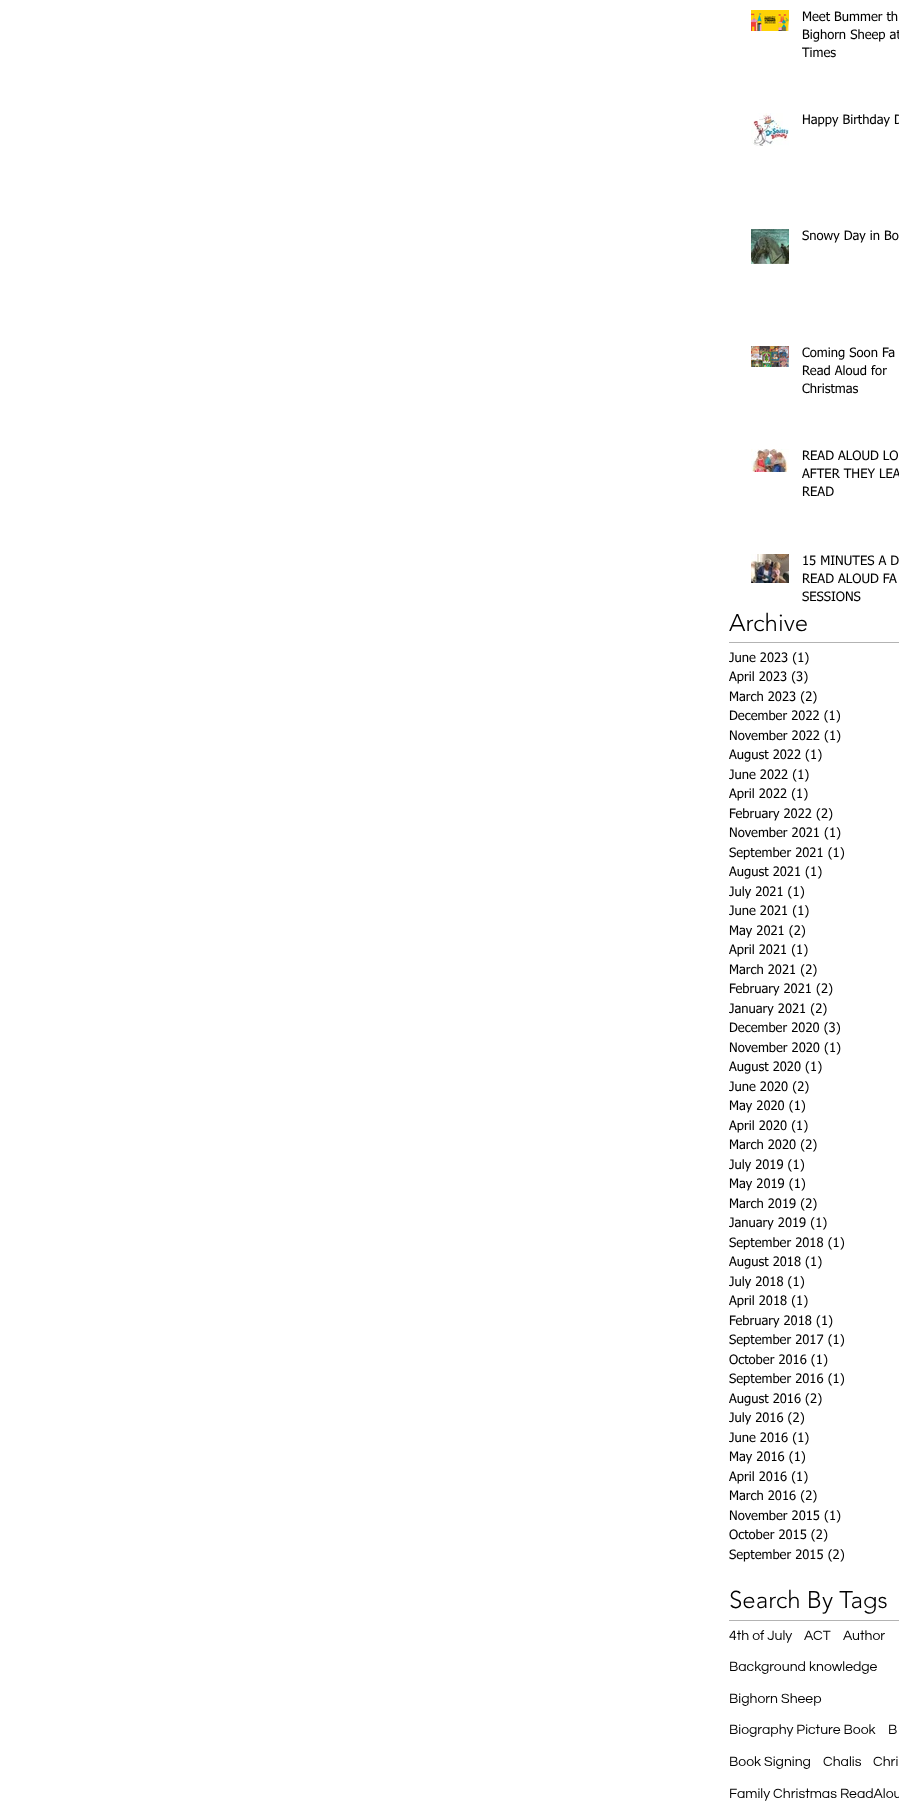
async function draw(canvas) {
  canvas.width = 899;
  canvas.height = 1803;
  const ctx = canvas.getContext('2d');
  ctx.miterLimit = 4;
  ctx.fontKerning = 'normal';
  function label(s, x, y, font, color) {
    ctx.font = font;
    ctx.fillStyle = color;
    ctx.fillText(s, x, y);
  }
  function rect(x, y, w, h, color) {
    ctx.fillStyle = color;
    ctx.fillRect(x, y, w, h);
  }
  async function image(src, x, y, w, h) {
    const img = new Image();
    img.src = src;
    await img.decode();
    ctx.drawImage(img, x, y, w, h);
  }

  rect(0, 0, 899, 1803, '#fff');
  await image('assets/img1.png', 751, 10, 38, 21);
  label('Meet Bummer th', 802, 21, '13px tahoma', '#000');
  label('Bighorn Sheep at', 802, 39, '13px tahoma', '#000');
  label('Times', 802, 57, '13px tahoma', '#000');
  await image('assets/img2.png', 751, 113, 38, 34);
  label('Happy Birthday D', 802, 124, '13px tahoma', '#000');
  await image('assets/img3.png', 751, 229, 38, 35);
  label('Snowy Day in Bo', 802, 240, '13px tahoma', '#000');
  await image('assets/img4.png', 751, 346, 38, 21);
  label('Coming Soon Fa', 802, 357, '13px tahoma', '#000');
  label('Read Aloud for', 802, 375, '13px tahoma', '#000');
  label('Christmas', 802, 393, '13px tahoma', '#000');
  await image('assets/img5.png', 751, 449, 38, 23);
  label('READ ALOUD LO', 802, 460, '13px tahoma', '#000');
  label('AFTER THEY LEA', 802, 478, '13px tahoma', '#000');
  label('READ', 802, 496, '13px tahoma', '#000');
  await image('assets/img6.png', 751, 554, 38, 29);
  label('15 MINUTES A D', 802, 565, '13px tahoma', '#000');
  label('READ ALOUD FA', 802, 583, '13px tahoma', '#000');
  label('SESSIONS', 802, 601, '13px tahoma', '#000');
  label('Archive', 729, 631, '300 24px "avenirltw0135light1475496"', '#000');
  rect(729, 642, 170, 1, '#b3b3b3');
  label('June 2023 (1)', 729, 662, '13px tahoma', '#000');
  label('April 2023 (3)', 729, 681, '13px tahoma', '#000');
  label('March 2023 (2)', 729, 701, '13px tahoma', '#000');
  label('December 2022 (1)', 729, 720, '13px tahoma', '#000');
  label('November 2022 (1)', 729, 740, '13px tahoma', '#000');
  label('August 2022 (1)', 729, 759, '13px tahoma', '#000');
  label('June 2022 (1)', 729, 779, '13px tahoma', '#000');
  label('April 2022 (1)', 729, 798, '13px tahoma', '#000');
  label('February 2022 (2)', 729, 818, '13px tahoma', '#000');
  label('November 2021 (1)', 729, 837, '13px tahoma', '#000');
  label('September 2021 (1)', 729, 857, '13px tahoma', '#000');
  label('August 2021 (1)', 729, 876, '13px tahoma', '#000');
  label('July 2021 (1)', 729, 896, '13px tahoma', '#000');
  label('June 2021 (1)', 729, 915, '13px tahoma', '#000');
  label('May 2021 (2)', 729, 935, '13px tahoma', '#000');
  label('April 2021 (1)', 729, 954, '13px tahoma', '#000');
  label('March 2021 (2)', 729, 974, '13px tahoma', '#000');
  label('February 2021 (2)', 729, 993, '13px tahoma', '#000');
  label('January 2021 (2)', 729, 1013, '13px tahoma', '#000');
  label('December 2020 (3)', 729, 1032, '13px tahoma', '#000');
  label('November 2020 (1)', 729, 1052, '13px tahoma', '#000');
  label('August 2020 (1)', 729, 1071, '13px tahoma', '#000');
  label('June 2020 (2)', 729, 1091, '13px tahoma', '#000');
  label('May 2020 (1)', 729, 1110, '13px tahoma', '#000');
  label('April 2020 (1)', 729, 1130, '13px tahoma', '#000');
  label('March 2020 (2)', 729, 1149, '13px tahoma', '#000');
  label('July 2019 (1)', 729, 1169, '13px tahoma', '#000');
  label('May 2019 (1)', 729, 1188, '13px tahoma', '#000');
  label('March 2019 (2)', 729, 1208, '13px tahoma', '#000');
  label('January 2019 (1)', 729, 1227, '13px tahoma', '#000');
  label('September 2018 (1)', 729, 1247, '13px tahoma', '#000');
  label('August 2018 (1)', 729, 1266, '13px tahoma', '#000');
  label('July 2018 (1)', 729, 1286, '13px tahoma', '#000');
  label('April 2018 (1)', 729, 1305, '13px tahoma', '#000');
  label('February 2018 (1)', 729, 1325, '13px tahoma', '#000');
  label('September 2017 (1)', 729, 1344, '13px tahoma', '#000');
  label('October 2016 (1)', 729, 1364, '13px tahoma', '#000');
  label('September 2016 (1)', 729, 1383, '13px tahoma', '#000');
  label('August 2016 (2)', 729, 1403, '13px tahoma', '#000');
  label('July 2016 (2)', 729, 1422, '13px tahoma', '#000');
  label('June 2016 (1)', 729, 1442, '13px tahoma', '#000');
  label('May 2016 (1)', 729, 1461, '13px tahoma', '#000');
  label('April 2016 (1)', 729, 1481, '13px tahoma', '#000');
  label('March 2016 (2)', 729, 1500, '13px tahoma', '#000');
  label('November 2015 (1)', 729, 1520, '13px tahoma', '#000');
  label('October 2015 (2)', 729, 1539, '13px tahoma', '#000');
  label('September 2015 (2)', 729, 1559, '13px tahoma', '#000');
  label('Search By Tags', 729, 1608, '300 24px "avenirltw0135light1475496"', '#000');
  rect(729, 1620, 170, 1, '#b3b3b3');
  label('4th of July', 729, 1640, '14px Questrial', '#000');
  label('ACT', 804, 1640, '14px Questrial', '#000');
  label('Author', 843, 1640, '14px Questrial', '#000');
  label('Background knowledge', 729, 1671, '14px Questrial', '#000');
  label('Bighorn Sheep', 729, 1703, '14px Questrial', '#000');
  label('Biography Picture Book', 729, 1734, '14px Questrial', '#000');
  label('B', 888, 1734, '14px Questrial', '#000');
  label('Book Signing', 729, 1766, '14px Questrial', '#000');
  label('Chalis', 823, 1766, '14px Questrial', '#000');
  label('Chri', 873, 1766, '14px Questrial', '#000');
  label('Family Christmas ReadAlou', 729, 1798, '14px Questrial', '#000');
}

draw(document.querySelector('canvas'));
